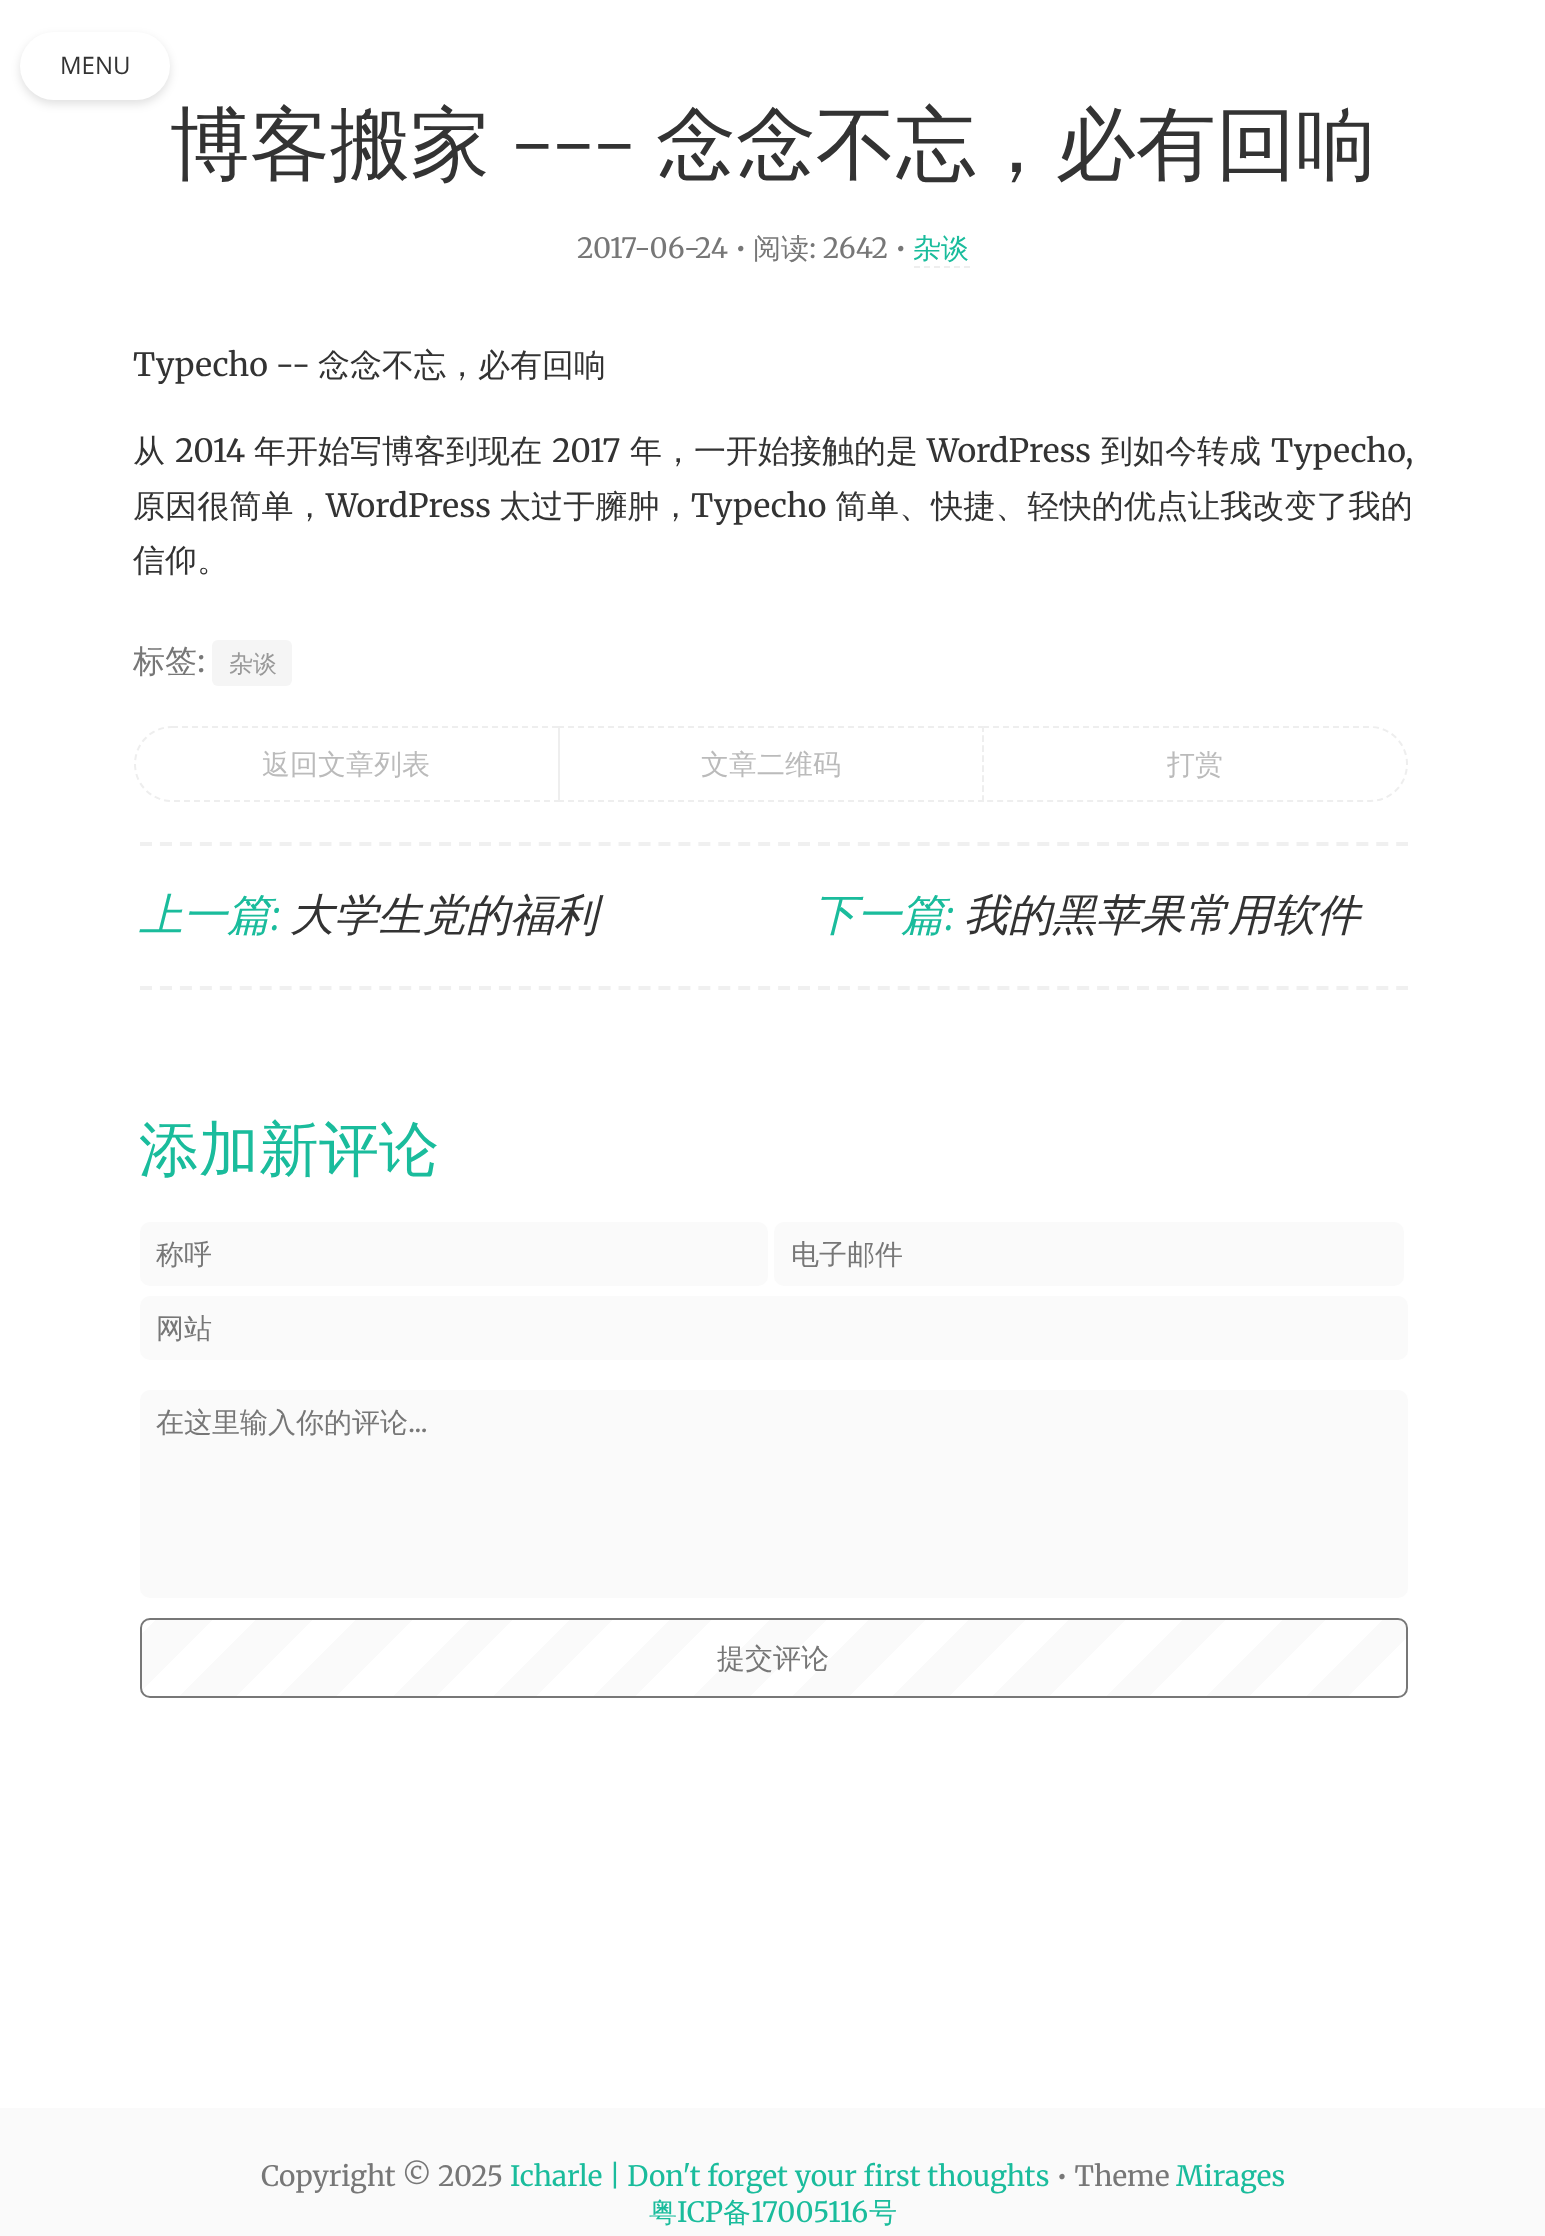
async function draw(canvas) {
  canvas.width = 1545;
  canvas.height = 2236;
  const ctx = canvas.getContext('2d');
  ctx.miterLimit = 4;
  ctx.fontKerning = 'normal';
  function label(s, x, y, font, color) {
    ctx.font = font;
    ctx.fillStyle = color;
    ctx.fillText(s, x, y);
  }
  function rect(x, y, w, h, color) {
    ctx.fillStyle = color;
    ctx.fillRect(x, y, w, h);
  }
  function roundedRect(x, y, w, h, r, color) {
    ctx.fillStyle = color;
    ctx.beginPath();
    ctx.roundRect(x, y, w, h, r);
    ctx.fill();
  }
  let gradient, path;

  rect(0, 0, 1545, 2236, '#fff');
  ctx.fillStyle = '#0000001f';
  ctx.filter = 'blur(5px)';
  ctx.beginPath();
  ctx.roundRect(20, 36, 150, 68, 34);
  ctx.fill();
  ctx.filter = 'none';
  roundedRect(20, 32, 150, 68, 34, '#fff');
  label('MENU', 60, 74, '24px Open Sans', '#333');
  label('博客搬家', 170, 172, '500 80px WenQuanYi Zen Hei', '#333');
  label('---', 509, 172, '300 80px Merriweather', '#333');
  label('念念不忘，必有回响', 656, 172, '500 80px WenQuanYi Zen Hei', '#333');
  label('2017-06-24 •', 577, 258, '28px Merriweather', '#777');
  label('阅读', 753, 258, '500 28px WenQuanYi Zen Hei', '#777');
  label(': 2642 •', 809, 258, '28px Merriweather', '#777');
  label('杂谈', 913, 258, '500 28px WenQuanYi Zen Hei', '#1abc9c');
  path = new Path2D('M914 267H970');
  ctx.strokeStyle = '#eee';
  ctx.lineWidth = 2;
  ctx.setLineDash([6, 4]);
  ctx.stroke(path);
  label('Typecho --', 133, 376, '32px Merriweather', '#333');
  label('念念不忘，必有回响', 318, 376, '500 32px WenQuanYi Zen Hei', '#333');
  label('从', 133, 462, '500 32px WenQuanYi Zen Hei', '#333');
  label('2014', 175, 462, '32px Merriweather', '#333');
  label('年开始写博客到现在', 254, 462, '500 32px WenQuanYi Zen Hei', '#333');
  label('2017', 552, 462, '32px Merriweather', '#333');
  label('年，一开始接触的是', 630, 462, '500 32px WenQuanYi Zen Hei', '#333');
  label('WordPress', 927, 462, '32px Merriweather', '#333');
  label('到如今转成', 1101, 462, '500 32px WenQuanYi Zen Hei', '#333');
  label('Typecho,', 1271, 462, '32px Merriweather', '#333');
  ctx.letterSpacing = '0.1px';
  label('原因很简单，', 133, 517, '500 32px WenQuanYi Zen Hei', '#333');
  label('WordPress', 326, 517, '32px Merriweather', '#333');
  label('太过于臃肿，', 499, 517, '500 32px WenQuanYi Zen Hei', '#333');
  label('Typecho', 691, 517, '32px Merriweather', '#333');
  label('简单、快捷、轻快的优点让我改变了我的', 835, 517, '500 32px WenQuanYi Zen Hei', '#333');
  ctx.letterSpacing = '0px';
  label('信仰。', 133, 571, '500 32px WenQuanYi Zen Hei', '#333');
  label('标签', 133, 672, '500 32px WenQuanYi Zen Hei', '#777');
  label(':', 197, 672, '32px Merriweather', '#777');
  roundedRect(212, 640, 80, 46, 6, '#f5f5f5');
  label('杂谈', 229, 672, '500 24px WenQuanYi Zen Hei', '#999');
  path = new Path2D('M172 727H559V801H172C151.5 801 135 784.5 135 764C135 743.5 151.5 727 172 727Z');
  ctx.stroke(path);
  label('返回文章列表', 262, 774, '500 28px WenQuanYi Zen Hei', '#bbb');
  path = new Path2D('M558 727H984');
  ctx.stroke(path);
  path = new Path2D('M983 726V802');
  ctx.stroke(path);
  path = new Path2D('M558 801H984');
  ctx.stroke(path);
  path = new Path2D('M559 726V802');
  ctx.stroke(path);
  label('文章二维码', 701, 774, '500 28px WenQuanYi Zen Hei', '#bbb');
  path = new Path2D('M983 727H1370C1390.5 727 1407 743.5 1407 764C1407 784.5 1390.5 801 1370 801H983Z');
  ctx.stroke(path);
  label('打赏', 1167, 774, '500 28px WenQuanYi Zen Hei', '#bbb');
  path = new Path2D('M140 844H1408');
  ctx.strokeStyle = '#f0f0f0';
  ctx.lineWidth = 4;
  ctx.setLineDash([12, 7.94]);
  ctx.stroke(path);
  path = new Path2D('M140 988H1408');
  ctx.stroke(path);
  label('上一篇', 139, 930, 'italic 500 44px WenQuanYi Zen Hei', '#1abc9c');
  label('大学生党的福利', 290, 930, 'italic 500 44px WenQuanYi Zen Hei', '#333');
  label(':', 271, 930, 'italic 300 44px Merriweather', '#1abc9c');
  label('下一篇', 813, 930, 'italic 500 44px WenQuanYi Zen Hei', '#1abc9c');
  label('我的黑苹果常用软件', 964, 930, 'italic 500 44px WenQuanYi Zen Hei', '#333');
  label(':', 945, 930, 'italic 300 44px Merriweather', '#1abc9c');
  label('添加新评论', 139, 1170, '500 60px WenQuanYi Zen Hei', '#1abc9c');
  roundedRect(140, 1222, 628, 64, 10, '#fafafa');
  label('称呼', 156, 1264, '500 28px WenQuanYi Zen Hei', '#777');
  roundedRect(774, 1222, 630, 64, 10, '#fafafa');
  label('电子邮件', 791, 1264, '500 28px WenQuanYi Zen Hei', '#777');
  roundedRect(140, 1296, 1268, 64, 10, '#fafafa');
  label('网站', 156, 1338, '500 28px WenQuanYi Zen Hei', '#777');
  roundedRect(140, 1390, 1268, 208, 10, '#fafafa');
  label('在这里输入你的评论', 156, 1432, '500 28px WenQuanYi Zen Hei', '#777');
  label('...', 408, 1432, '28px Merriweather', '#777');
  ctx.save();
  ctx.beginPath();
  ctx.roundRect(140, 1618, 1268, 80, 10);
  ctx.clip();
  gradient = ctx.createLinearGradient(1109, 1993, 396, 1280);
  gradient.addColorStop(0, '#fff');
  gradient.addColorStop(0.04, '#fff');
  gradient.addColorStop(0.04, '#fafafa');
  gradient.addColorStop(0.07, '#fafafa');
  gradient.addColorStop(0.07, '#fff');
  gradient.addColorStop(0.11, '#fff');
  gradient.addColorStop(0.11, '#fafafa');
  gradient.addColorStop(0.14, '#fafafa');
  gradient.addColorStop(0.14, '#fff');
  gradient.addColorStop(0.18, '#fff');
  gradient.addColorStop(0.18, '#fafafa');
  gradient.addColorStop(0.21, '#fafafa');
  gradient.addColorStop(0.21, '#fff');
  gradient.addColorStop(0.25, '#fff');
  gradient.addColorStop(0.25, '#fafafa');
  gradient.addColorStop(0.29, '#fafafa');
  gradient.addColorStop(0.29, '#fff');
  gradient.addColorStop(0.32, '#fff');
  gradient.addColorStop(0.32, '#fafafa');
  gradient.addColorStop(0.36, '#fafafa');
  gradient.addColorStop(0.36, '#fff');
  gradient.addColorStop(0.39, '#fff');
  gradient.addColorStop(0.39, '#fafafa');
  gradient.addColorStop(0.43, '#fafafa');
  gradient.addColorStop(0.43, '#fff');
  gradient.addColorStop(0.46, '#fff');
  gradient.addColorStop(0.46, '#fafafa');
  gradient.addColorStop(0.5, '#fafafa');
  gradient.addColorStop(0.5, '#fff');
  gradient.addColorStop(0.54, '#fff');
  gradient.addColorStop(0.54, '#fafafa');
  gradient.addColorStop(0.57, '#fafafa');
  gradient.addColorStop(0.57, '#fff');
  gradient.addColorStop(0.61, '#fff');
  gradient.addColorStop(0.61, '#fafafa');
  gradient.addColorStop(0.64, '#fafafa');
  gradient.addColorStop(0.64, '#fff');
  gradient.addColorStop(0.68, '#fff');
  gradient.addColorStop(0.68, '#fafafa');
  gradient.addColorStop(0.71, '#fafafa');
  gradient.addColorStop(0.71, '#fff');
  gradient.addColorStop(0.75, '#fff');
  gradient.addColorStop(0.75, '#fafafa');
  gradient.addColorStop(0.79, '#fafafa');
  gradient.addColorStop(0.79, '#fff');
  gradient.addColorStop(0.82, '#fff');
  gradient.addColorStop(0.82, '#fafafa');
  gradient.addColorStop(0.86, '#fafafa');
  gradient.addColorStop(0.86, '#fff');
  gradient.addColorStop(0.89, '#fff');
  gradient.addColorStop(0.89, '#fafafa');
  gradient.addColorStop(0.93, '#fafafa');
  gradient.addColorStop(0.93, '#fff');
  gradient.addColorStop(0.96, '#fff');
  gradient.addColorStop(0.96, '#fafafa');
  gradient.addColorStop(1, '#fafafa');
  ctx.fillStyle = gradient;
  ctx.fillRect(142, 1620, 1264, 76);
  ctx.restore();
  ctx.beginPath();
  ctx.roundRect(141, 1619, 1266, 78, 9);
  ctx.strokeStyle = '#777';
  ctx.lineWidth = 2;
  ctx.setLineDash([]);
  ctx.stroke();
  label('提交评论', 717, 1668, '500 28px WenQuanYi Zen Hei', '#777');
  rect(0, 2108, 1545, 128, '#fafafa');
  label('Copyright © 2025', 261, 2186, '28px Merriweather', '#777');
  label('Icharle | Don\'t forget your first thoughts', 510, 2186, '28px Merriweather', '#1abc9c');
  label('• Theme', 1056, 2186, '28px Merriweather', '#777');
  label('Mirages', 1176, 2186, '28px Merriweather', '#1abc9c');
  label('粤', 649, 2222, '500 28px WenQuanYi Zen Hei', '#1abc9c');
  label('ICP', 677, 2222, '28px Merriweather', '#1abc9c');
  label('备', 723, 2222, '500 28px WenQuanYi Zen Hei', '#1abc9c');
  label('17005116', 751, 2222, '28px Merriweather', '#1abc9c');
  label('号', 869, 2222, '500 28px WenQuanYi Zen Hei', '#1abc9c');
}

draw(document.querySelector('canvas'));
